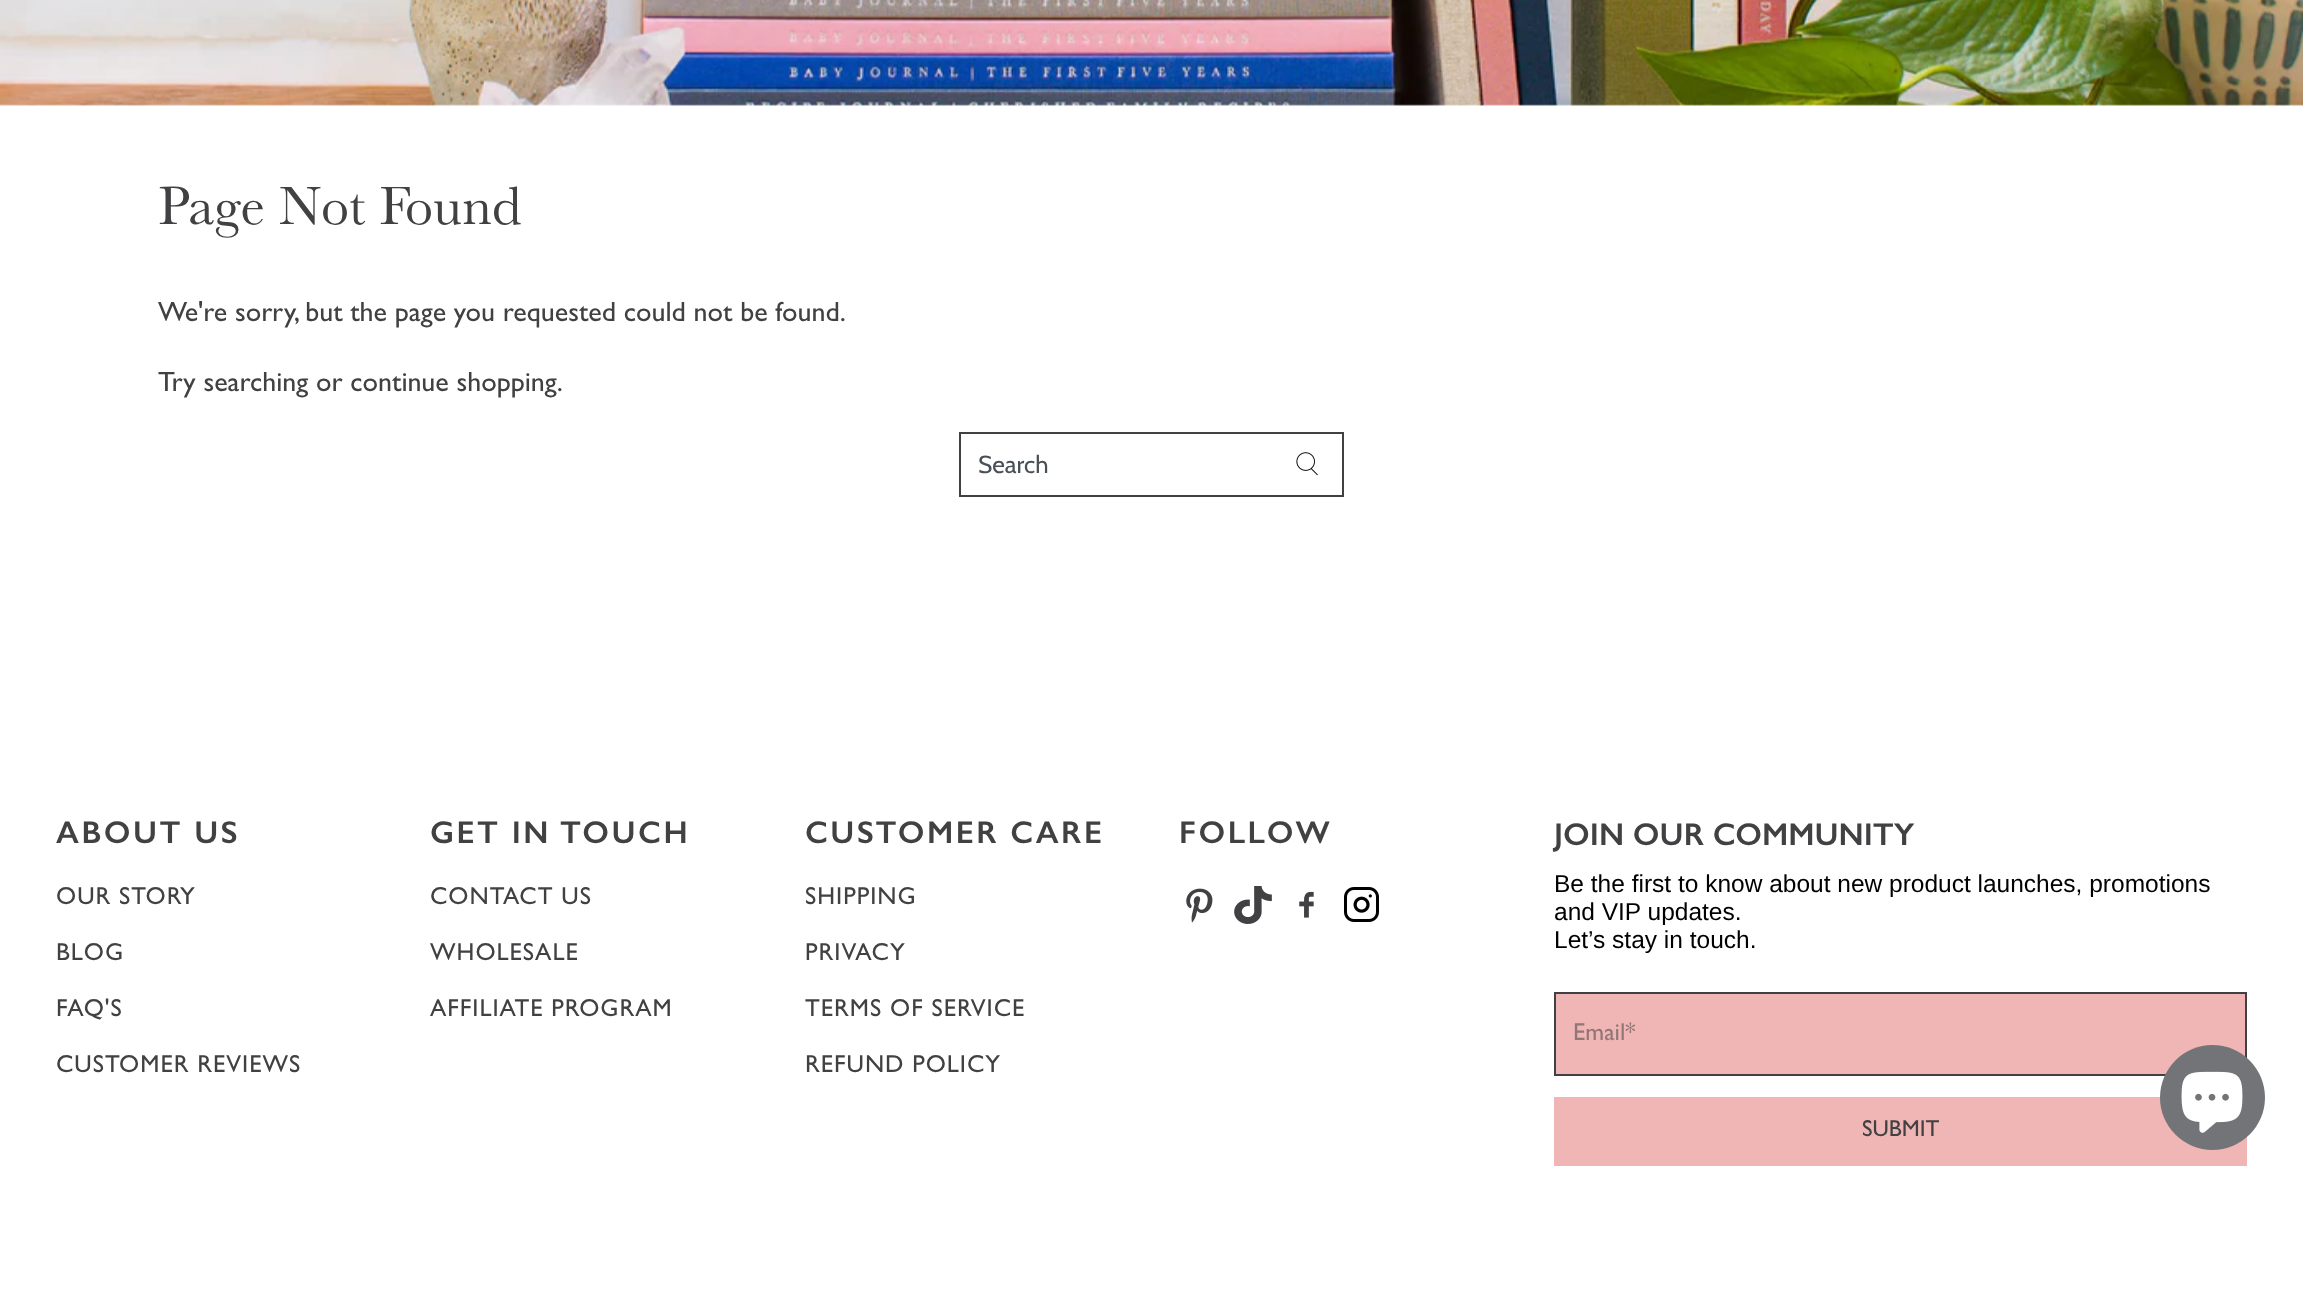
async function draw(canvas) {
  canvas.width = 2303;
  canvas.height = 1298;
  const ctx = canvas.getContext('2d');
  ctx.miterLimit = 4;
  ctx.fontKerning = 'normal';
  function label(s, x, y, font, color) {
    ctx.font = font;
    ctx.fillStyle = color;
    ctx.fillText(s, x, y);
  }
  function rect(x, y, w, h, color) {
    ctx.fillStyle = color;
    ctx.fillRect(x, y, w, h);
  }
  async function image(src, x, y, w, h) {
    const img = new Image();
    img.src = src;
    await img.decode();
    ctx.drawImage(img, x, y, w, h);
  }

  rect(0, 0, 2303, 1298, '#fff');
  await image('assets/img1.png', 0, 0, 2303, 106);
  label('Page Not Found', 158, 224, '56px Baskerville', '#414042');
  label('We\'re sorry, but the page you requested could not be found.', 158, 321, '28px Gill Sans', '#414042');
  label('Try searching or continue shopping.', 158, 391, '28px Gill Sans', '#414042');
  ctx.strokeStyle = '#414042';
  ctx.lineWidth = 2;
  ctx.strokeRect(960, 433, 383, 63);
  label('Search', 978, 473, '24.5px Cabin', '#495057');
  await image('assets/img2.png', 1296, 452, 22, 24);
  ctx.letterSpacing = '2.5px';
  label('ABOUT US', 56, 843, '600 31.5px Gill Sans', '#414042');
  ctx.letterSpacing = '1px';
  label('OUR STORY', 56, 904, '24.5px Gill Sans', '#414042');
  label('BLOG', 56, 960, '24.5px Gill Sans', '#414042');
  label('FAQ\'S', 56, 1016, '24.5px Gill Sans', '#414042');
  label('CUSTOMER REVIEWS', 56, 1072, '24.5px Gill Sans', '#414042');
  ctx.letterSpacing = '2.5px';
  label('GET IN TOUCH', 430, 843, '600 31.5px Gill Sans', '#414042');
  ctx.letterSpacing = '1px';
  label('CONTACT US', 430, 904, '24.5px Gill Sans', '#414042');
  label('WHOLESALE', 430, 960, '24.5px Gill Sans', '#414042');
  label('AFFILIATE PROGRAM', 430, 1016, '24.5px Gill Sans', '#414042');
  ctx.letterSpacing = '2.5px';
  label('CUSTOMER CARE', 805, 843, '600 31.5px Gill Sans', '#414042');
  ctx.letterSpacing = '1px';
  label('SHIPPING', 805, 904, '24.5px Gill Sans', '#414042');
  label('PRIVACY', 805, 960, '24.5px Gill Sans', '#414042');
  label('TERMS OF SERVICE', 805, 1016, '24.5px Gill Sans', '#414042');
  label('REFUND POLICY', 805, 1072, '24.5px Gill Sans', '#414042');
  ctx.letterSpacing = '2.5px';
  label('FOLLOW', 1179, 843, '600 31.5px Gill Sans', '#414042');
  await image('assets/img3.png', 1186, 888, 27, 35);
  await image('assets/img4.png', 1234, 886, 38, 38);
  await image('assets/img5.png', 1299, 891, 15, 27);
  await image('assets/img6.png', 1344, 887, 35, 35);
  ctx.letterSpacing = '0px';
  label('JOIN OUR COMMUNITY', 1554, 845, '600 31.5px Gill Sans', '#414042');
  label('Be the first to know about new product launches, promotions', 1554, 892, '24.5px Liberation Sans', '#000');
  label('and VIP updates.', 1554, 920, '24.5px Liberation Sans', '#000');
  label('Let’s stay in touch.', 1554, 948, '24.5px Liberation Sans', '#000');
  ctx.fillStyle = '#f0b6b5';
  ctx.beginPath();
  ctx.rect(1555, 993, 691, 82);
  ctx.fill();
  ctx.stroke();
  label('Email*', 1573, 1040, '24.5px Gill Sans', '#927677');
  rect(1554, 1097, 693, 69, '#f0b6b5');
  label('SUBMIT', 1862, 1136, '23px Gill Sans', '#414042');
  ctx.fillStyle = '#727478';
  ctx.beginPath();
  ctx.arc(2212.5, 1097.5, 52.5, 0, 2 * Math.PI);
  ctx.fill();
  await image('assets/img7.png', 2181, 1071, 62, 62);
}

draw(document.querySelector('canvas'));
